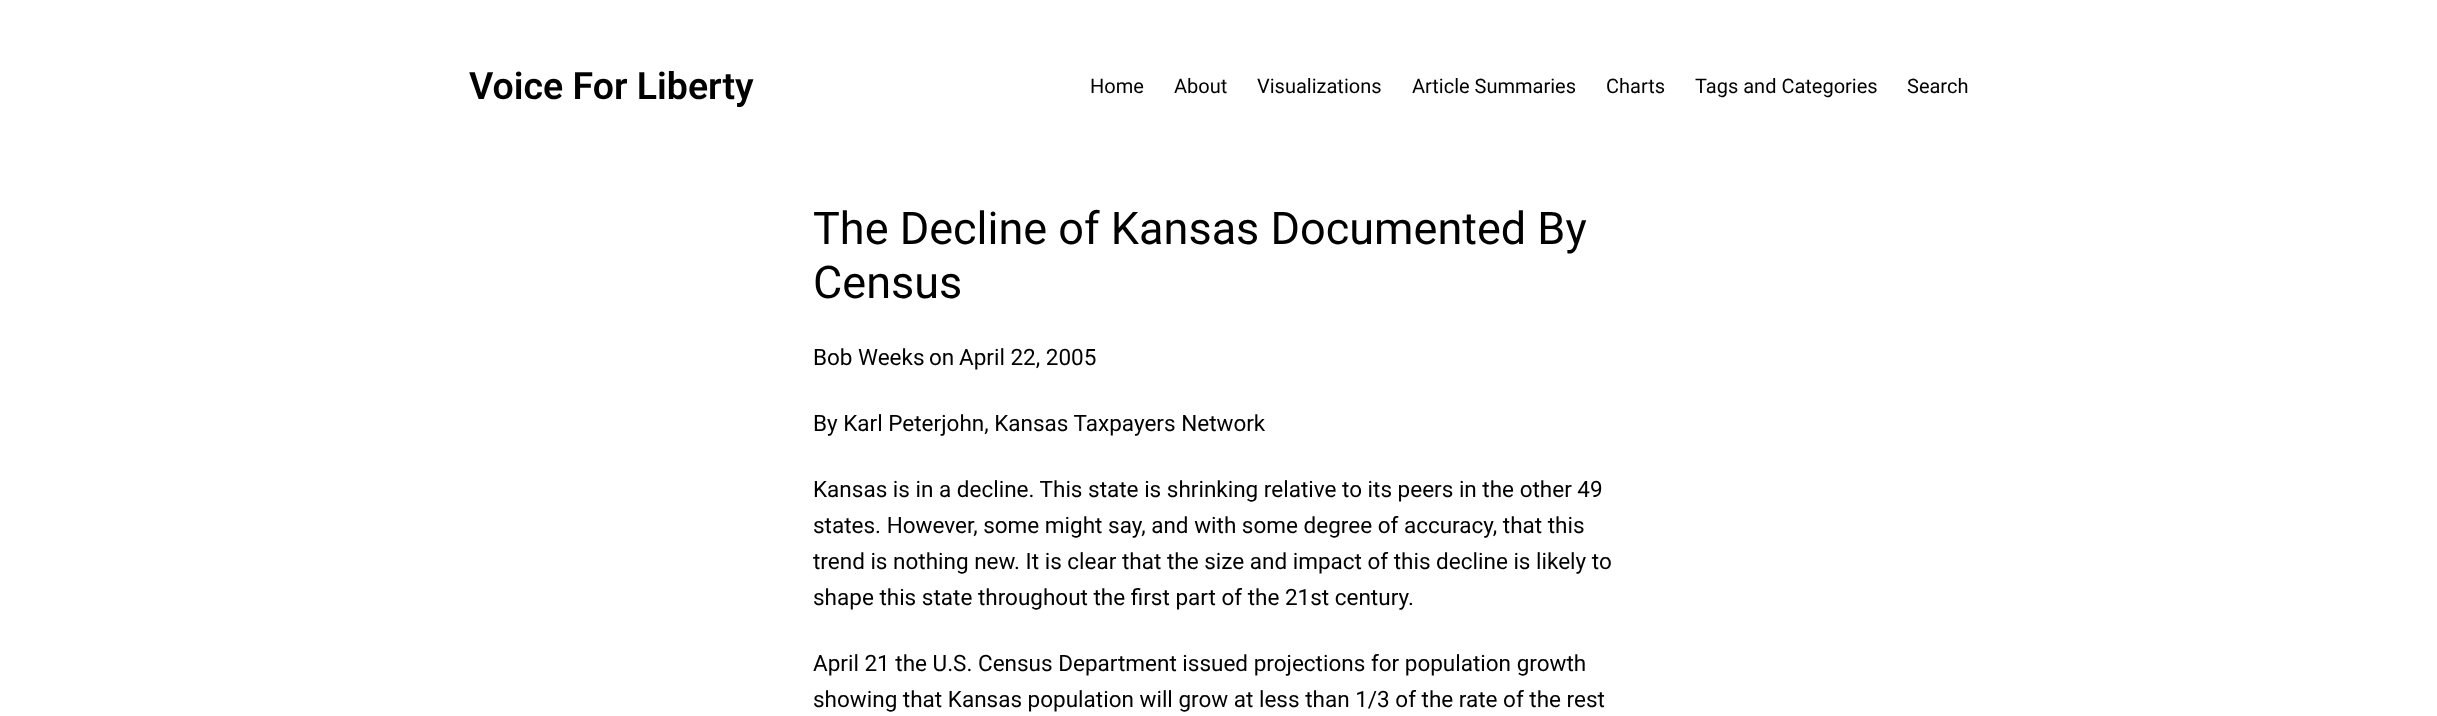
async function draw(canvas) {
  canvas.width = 2437;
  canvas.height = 716;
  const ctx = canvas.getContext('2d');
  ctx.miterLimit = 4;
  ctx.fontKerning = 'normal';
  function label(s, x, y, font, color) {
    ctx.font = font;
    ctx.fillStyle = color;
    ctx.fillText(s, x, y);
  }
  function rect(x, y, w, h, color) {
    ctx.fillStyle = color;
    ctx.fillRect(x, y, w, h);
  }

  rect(0, 0, 2437, 716, '#fff');
  label('Voice For Liberty', 469, 99, '600 37.5px Roboto', '#000');
  label('Home', 1090, 93, '20px Roboto', '#000');
  label('About', 1174, 93, '20px Roboto', '#000');
  label('Visualizations', 1257, 93, '20px Roboto', '#000');
  label('Article Summaries', 1412, 93, '20px Roboto', '#000');
  label('Charts', 1606, 93, '20px Roboto', '#000');
  label('Tags and Categories', 1695, 93, '20px Roboto', '#000');
  label('Search', 1907, 93, '20px Roboto', '#000');
  label('The Decline of Kansas Documented By', 813, 244, '45px Roboto', '#000');
  label('Census', 813, 298, '45px Roboto', '#000');
  label('Bob Weeks', 813, 365, '22.5px Roboto', '#000');
  label('on', 929, 365, '22.5px Roboto', '#000');
  label('April 22, 2005', 959, 365, '22.5px Roboto', '#000');
  label('By Karl Peterjohn, Kansas Taxpayers Network', 813, 431, '22.5px Roboto', '#000');
  label('Kansas is in a decline. This state is shrinking relative to its peers in the other 49', 813, 497, '22.5px Roboto', '#000');
  label('states. However, some might say, and with some degree of accuracy, that this', 813, 533, '22.5px Roboto', '#000');
  label('trend is nothing new. It is clear that the size and impact of this decline is likely to', 813, 569, '22.5px Roboto', '#000');
  label('shape this state throughout the first part of the 21st century.', 813, 605, '22.5px Roboto', '#000');
  label('April 21 the U.S. Census Department issued projections for population growth', 813, 671, '22.5px Roboto', '#000');
  label('showing that Kansas population will grow at less than 1/3 of the rate of the rest', 813, 707, '22.5px Roboto', '#000');
}

draw(document.querySelector('canvas'));
